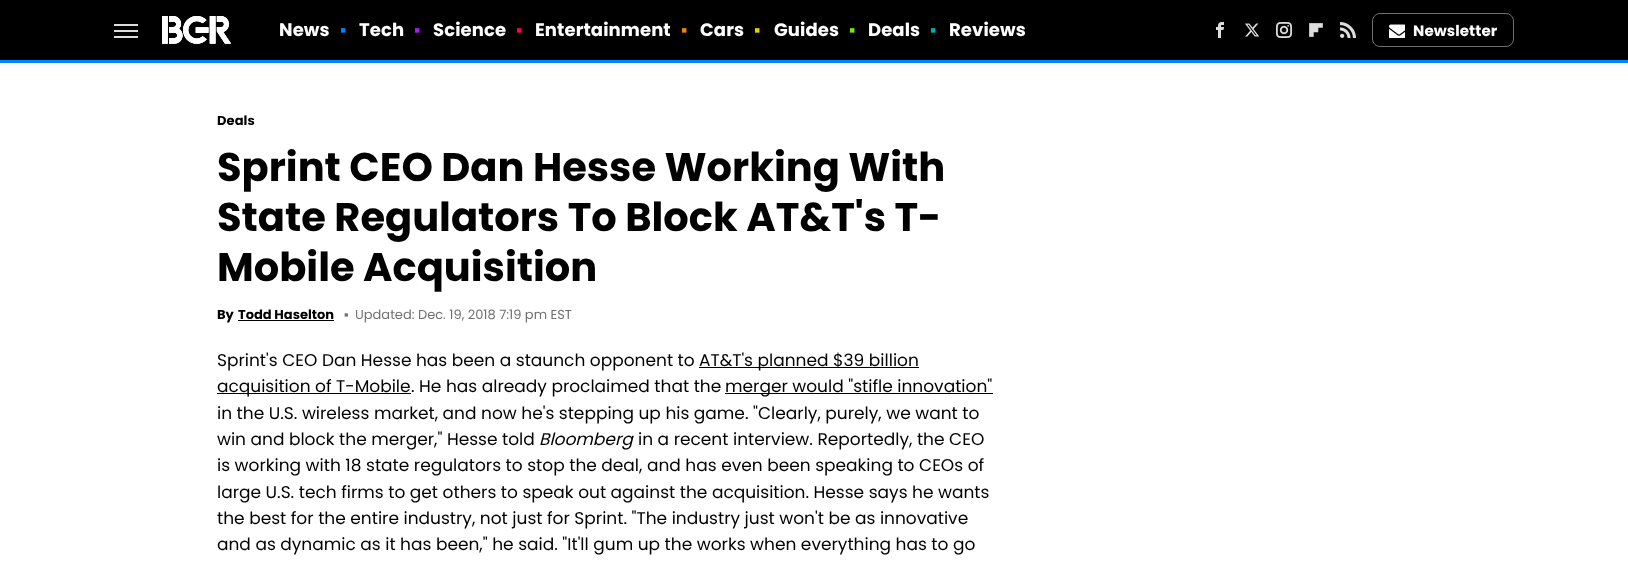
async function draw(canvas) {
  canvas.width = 1628;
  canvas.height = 561;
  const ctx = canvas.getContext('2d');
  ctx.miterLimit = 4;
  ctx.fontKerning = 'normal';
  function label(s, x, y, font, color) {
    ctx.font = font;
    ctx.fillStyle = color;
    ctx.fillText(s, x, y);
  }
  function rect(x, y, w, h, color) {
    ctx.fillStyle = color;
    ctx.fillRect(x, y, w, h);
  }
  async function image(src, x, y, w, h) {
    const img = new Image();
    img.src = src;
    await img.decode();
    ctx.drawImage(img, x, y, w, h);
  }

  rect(0, 0, 1628, 561, '#fff');
  rect(0, 0, 1628, 60, '#000');
  rect(0, 60, 1628, 3, '#0284ff');
  rect(114, 24, 24, 2, '#ddd');
  rect(114, 30, 24, 2, '#ddd');
  rect(114, 36, 24, 2, '#ddd');
  await image('assets/img1.png', 162, 16, 69, 28);
  ctx.letterSpacing = '0.1px';
  label('News', 279, 36, 'bold 18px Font', '#fff');
  label('▪', 340, 36, '18px Liberation Sans', '#0284ff');
  label('Tech', 359, 36, 'bold 18px Font', '#fff');
  label('▪', 414, 36, '18px Liberation Sans', '#ab19ff');
  label('Science', 433, 36, 'bold 18px Font', '#fff');
  label('▪', 516, 36, '18px Liberation Sans', '#ff024a');
  label('Entertainment', 535, 36, 'bold 18px Font', '#fff');
  label('▪', 681, 36, '18px Liberation Sans', '#f38600');
  label('Cars', 700, 36, 'bold 18px Font', '#fff');
  label('▪', 754, 36, '18px Liberation Sans', '#e2d300');
  label('Guides', 774, 36, 'bold 18px Font', '#fff');
  label('▪', 849, 36, '18px Liberation Sans', '#79e200');
  label('Deals', 868, 36, 'bold 18px Font', '#fff');
  label('▪', 930, 36, '18px Liberation Sans', '#02aeb7');
  label('Reviews', 949, 36, 'bold 18px Font', '#fff');
  await image('assets/img2.png', 1216, 22, 8, 16);
  await image('assets/img3.png', 1245, 23, 15, 14);
  await image('assets/img4.png', 1276, 22, 16, 16);
  await image('assets/img5.png', 1309, 23, 14, 14);
  await image('assets/img6.png', 1340, 22, 16, 16);
  ctx.beginPath();
  ctx.roundRect(1372.5, 13.5, 141, 33, 7.5);
  ctx.strokeStyle = '#707070';
  ctx.stroke();
  await image('assets/img7.png', 1389, 24, 16, 14);
  label('Newsletter', 1413, 36, 'bold 15px Font', '#fff');
  label('Deals', 217, 125, 'bold 13px Font', '#000');
  ctx.letterSpacing = '0px';
  label('Sprint CEO Dan Hesse Working With', 217, 181, 'bold 40px Font', '#000');
  label('State Regulators To Block AT&T\'s T-', 217, 231, 'bold 40px Font', '#000');
  label('Mobile Acquisition', 217, 281, 'bold 40px Font', '#000');
  label('By', 217, 319, 'bold 13px Font', '#000');
  label('Todd Haselton', 238, 319, 'bold 13px Font', '#000');
  rect(238, 320, 96, 1, '#000');
  label('▪', 344, 319, '13px Liberation Sans', '#707070');
  label('Updated: Dec. 19, 2018 7:19 pm EST', 355, 319, '13px poppins', '#707070');
  label('Sprint\'s CEO Dan Hesse has been a staunch opponent to', 217, 366, '17px poppins', '#000');
  rect(699, 367, 220, 1, '#000');
  label('AT&T\'s planned $39 billion', 699, 366, '17px poppins', '#000');
  rect(217, 393, 194, 1, '#000');
  label('acquisition of T-Mobile', 217, 392, '17px poppins', '#000');
  label('. He has already proclaimed that the', 411, 392, '17px poppins', '#000');
  rect(725, 393, 268, 1, '#000');
  label('merger would "stifle innovation"', 725, 392, '17px poppins', '#000');
  label('in the U.S. wireless market, and now he\'s stepping up his game. "Clearly, purely, we want to', 217, 419, '17px poppins', '#000');
  label('win and block the merger," Hesse told', 217, 445, '17px poppins', '#000');
  label('Bloomberg', 539, 445, 'italic 17px poppins', '#000');
  label('in a recent interview. Reportedly, the CEO', 638, 445, '17px poppins', '#000');
  label('is working with 18 state regulators to stop the deal, and has even been speaking to CEOs of', 217, 471, '17px poppins', '#000');
  label('large U.S. tech firms to get others to speak out against the acquisition. Hesse says he wants', 217, 498, '17px poppins', '#000');
  label('the best for the entire industry, not just for Sprint. "The industry just won\'t be as innovative', 217, 524, '17px poppins', '#000');
  label('and as dynamic as it has been," he said. "It\'ll gum up the works when everything has to go', 217, 550, '17px poppins', '#000');
}

draw(document.querySelector('canvas'));
